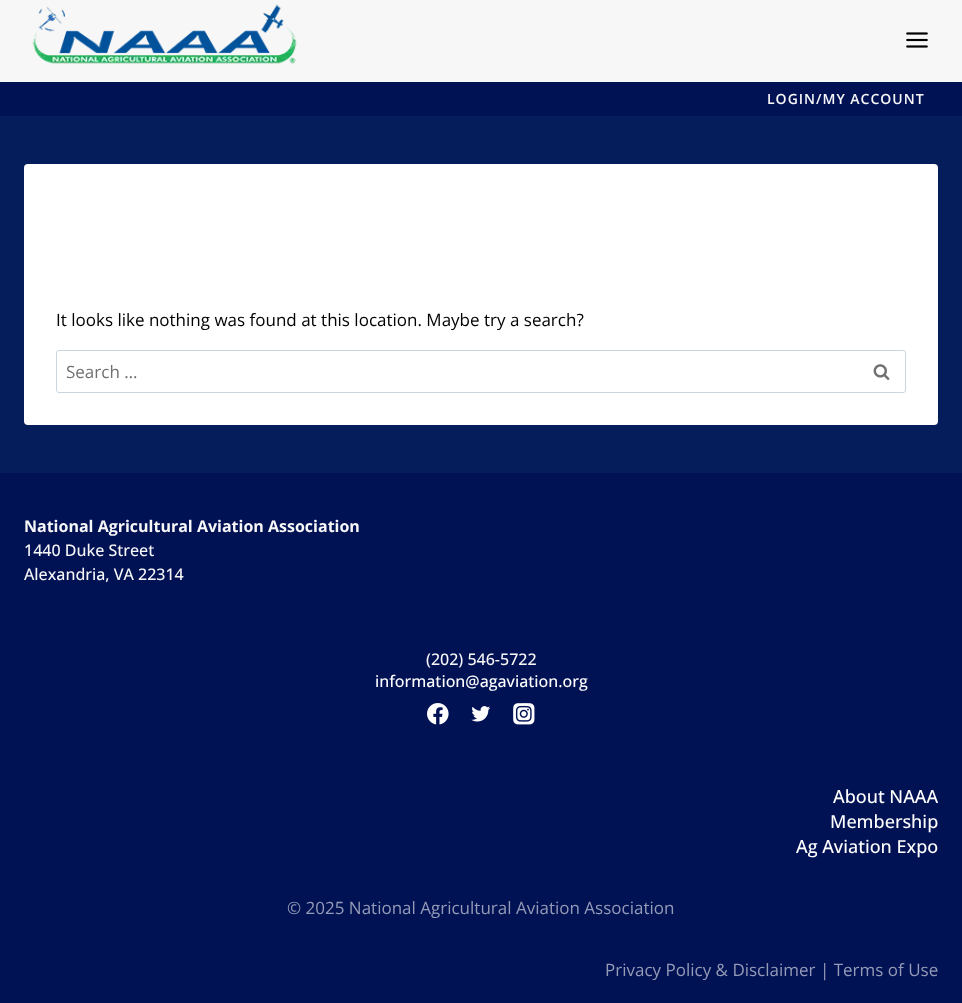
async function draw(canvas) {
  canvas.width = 962;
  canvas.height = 1003;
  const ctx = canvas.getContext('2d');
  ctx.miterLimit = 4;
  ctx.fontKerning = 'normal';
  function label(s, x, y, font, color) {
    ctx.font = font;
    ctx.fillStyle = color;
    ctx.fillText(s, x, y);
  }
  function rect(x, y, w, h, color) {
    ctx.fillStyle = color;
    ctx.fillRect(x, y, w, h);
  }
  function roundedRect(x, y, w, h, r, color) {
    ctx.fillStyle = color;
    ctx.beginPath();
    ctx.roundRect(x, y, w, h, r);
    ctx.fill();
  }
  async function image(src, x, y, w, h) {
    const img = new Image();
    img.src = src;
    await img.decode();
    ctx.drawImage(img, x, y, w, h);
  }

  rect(0, 0, 962, 1003, '#051d5b');
  rect(0, 0, 962, 82, '#f7f7f7');
  await image('assets/img1.png', 32, 4, 265, 60);
  await image('assets/img2.png', 906, 32, 22, 16);
  rect(0, 82, 962, 34, '#001154');
  ctx.letterSpacing = '1px';
  label('LOGIN/MY ACCOUNT', 767, 104, '600 14px Open Sans', '#f7f7f7');
  roundedRect(24, 164, 914, 261, 4, '#fff');
  ctx.letterSpacing = '0px';
  label('It looks like nothing was found at this location. Maybe try a search?', 56, 326, '17px Open Sans', '#000');
  ctx.beginPath();
  ctx.roundRect(56.5, 350.5, 849, 42, 2.5);
  ctx.strokeStyle = '#cbd5e0';
  ctx.stroke();
  label('Search …', 66, 378, '17px Open Sans', '#717070');
  await image('assets/img3.png', 873, 364, 17, 16);
  rect(0, 473, 962, 530, '#001154');
  label('National Agricultural Aviation Association', 24, 532, 'bold 16px Open Sans', '#f7f7f7');
  label('1440 Duke Street', 24, 556, '500 16px Open Sans', '#f7f7f7');
  label('Alexandria, VA 22314', 24, 580, '500 16px Open Sans', '#f7f7f7');
  label('(202) 546-5722', 426, 665, '500 16px Open Sans', '#f7f7f7');
  label('information@agaviation.org', 375, 687, '500 16px Open Sans', '#fff');
  await image('assets/img4.png', 427, 703, 22, 22);
  await image('assets/img5.png', 471, 706, 20, 16);
  await image('assets/img6.png', 513, 703, 22, 22);
  label('About NAAA', 833, 803, '500 18px Open Sans', '#fff');
  label('Membership', 830, 828, '500 18px Open Sans', '#fff');
  label('Ag Aviation Expo', 796, 853, '500 18px Open Sans', '#fff');
  label('© 2025 National Agricultural Aviation Association', 287, 914, '17px Open Sans', '#949bb6');
  label('Privacy Policy & Disclaimer | Terms of Use', 605, 976, '17px Open Sans', '#949bb6');
}

draw(document.querySelector('canvas'));
